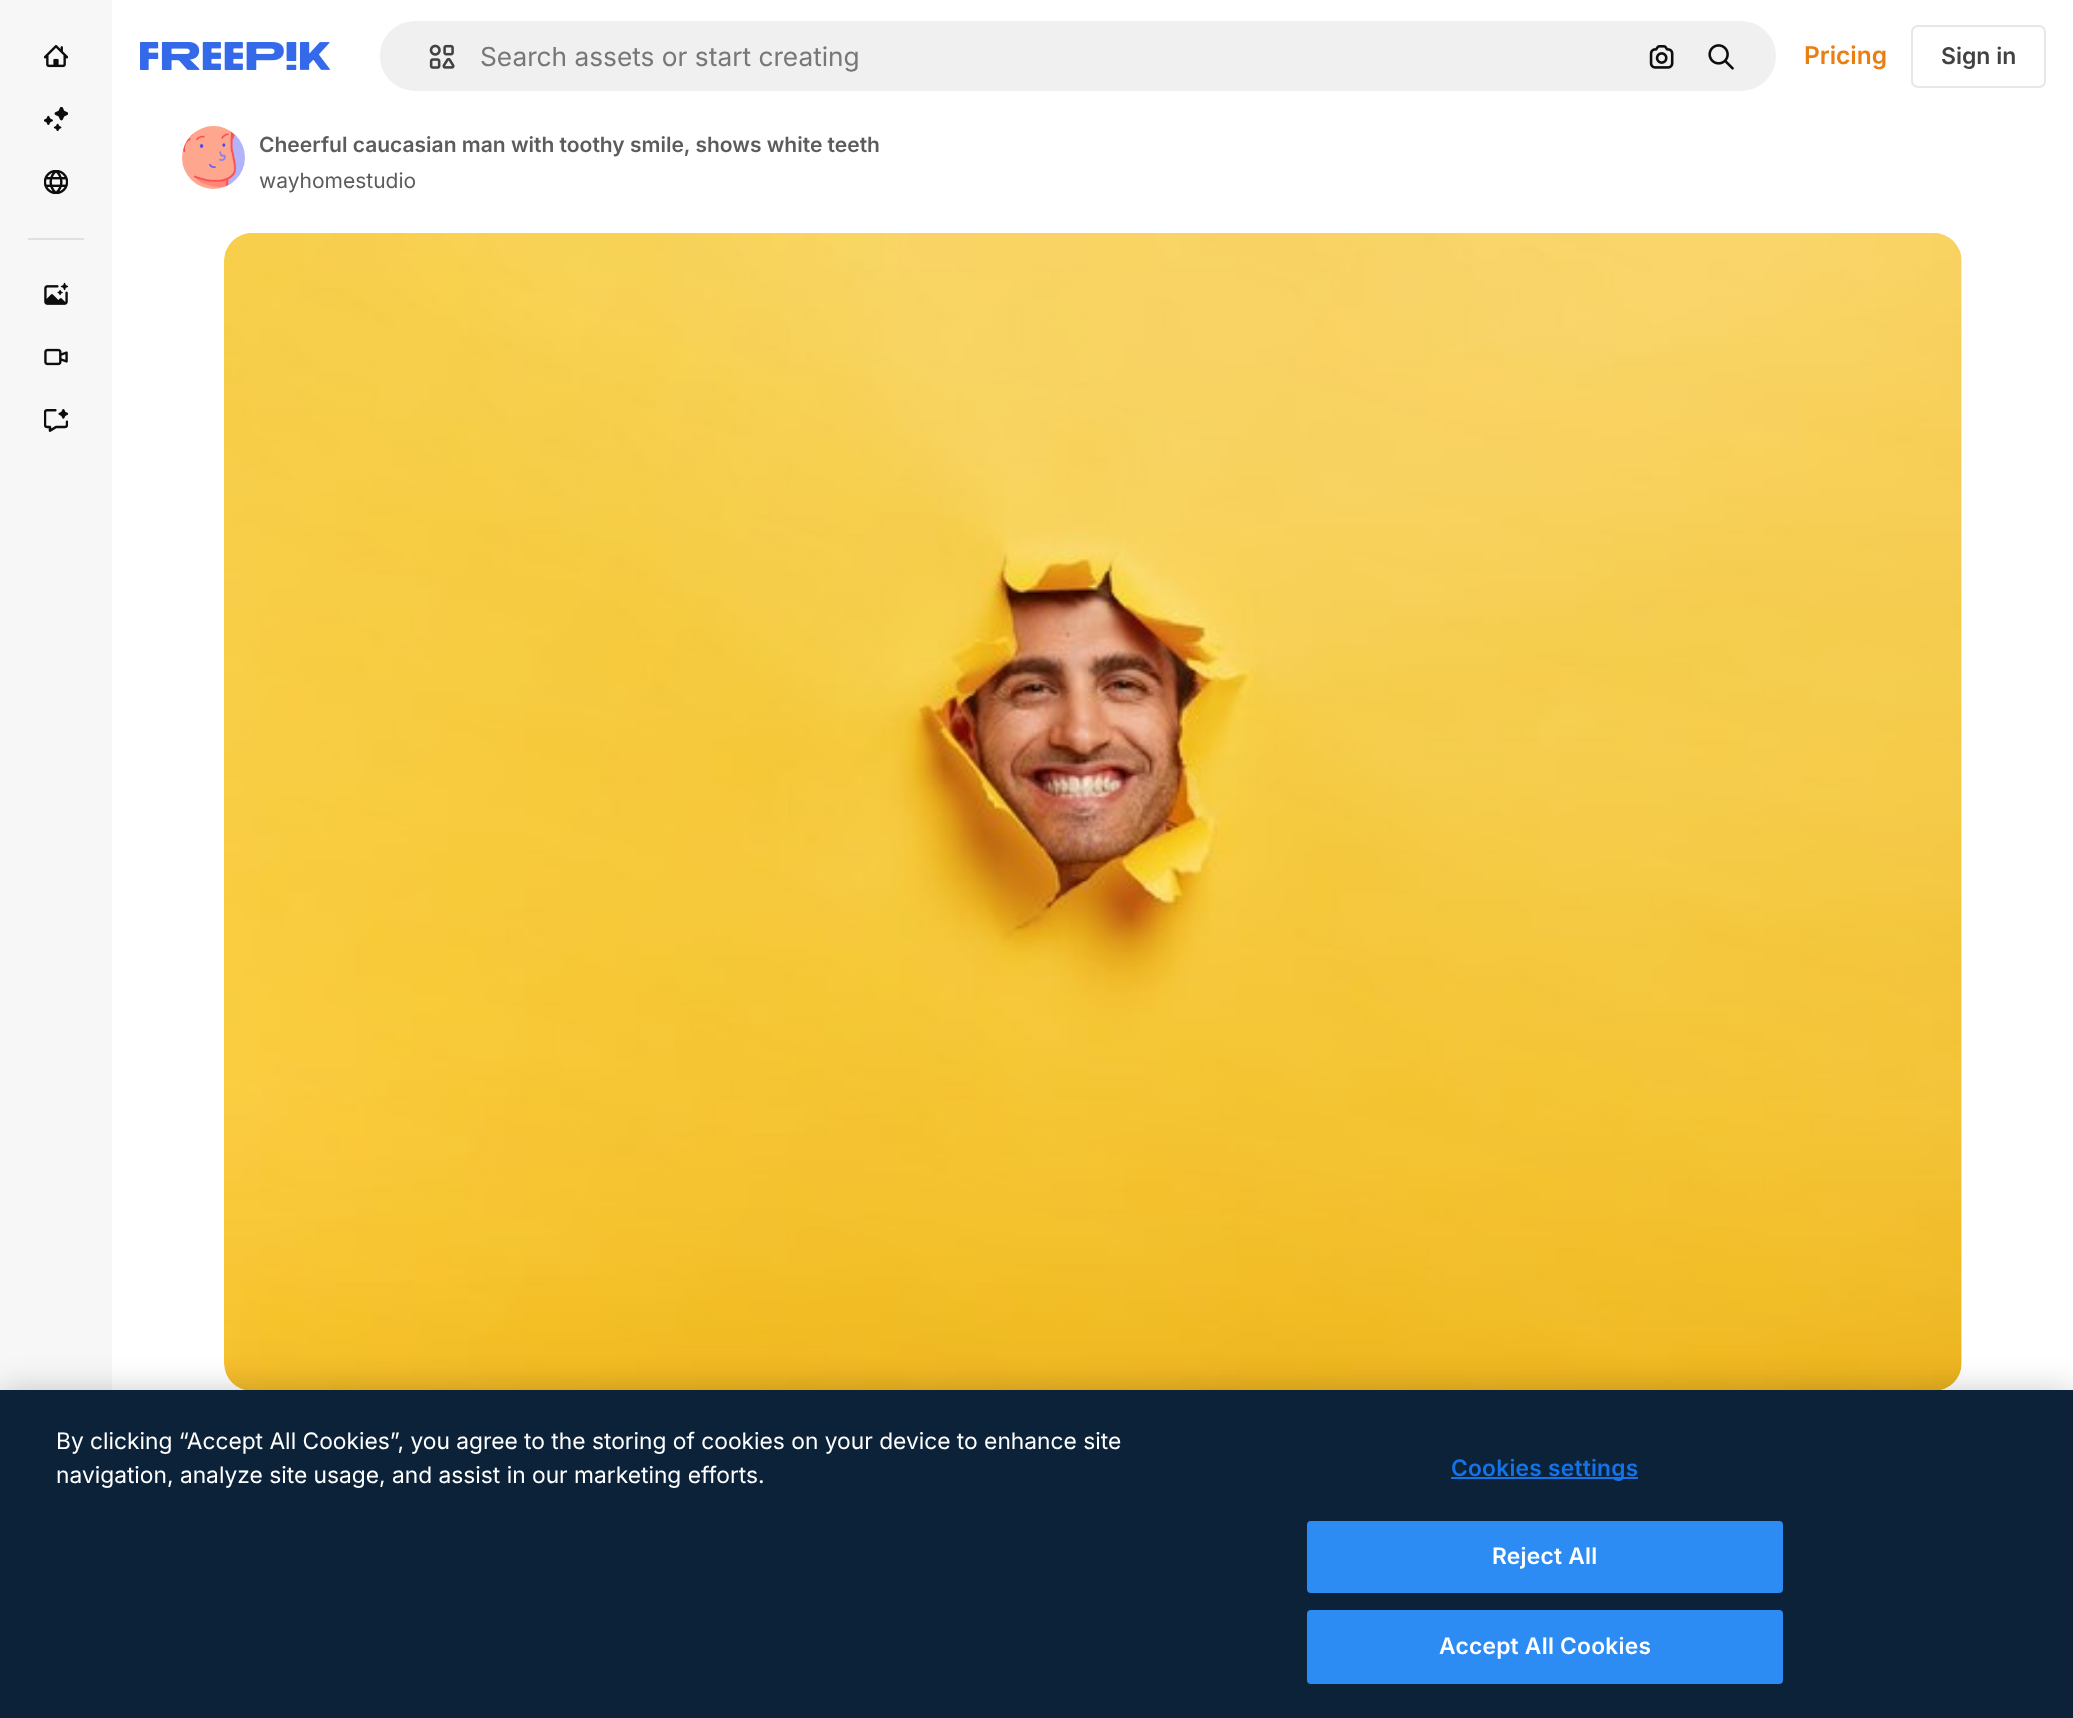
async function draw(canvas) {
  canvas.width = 2073;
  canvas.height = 1718;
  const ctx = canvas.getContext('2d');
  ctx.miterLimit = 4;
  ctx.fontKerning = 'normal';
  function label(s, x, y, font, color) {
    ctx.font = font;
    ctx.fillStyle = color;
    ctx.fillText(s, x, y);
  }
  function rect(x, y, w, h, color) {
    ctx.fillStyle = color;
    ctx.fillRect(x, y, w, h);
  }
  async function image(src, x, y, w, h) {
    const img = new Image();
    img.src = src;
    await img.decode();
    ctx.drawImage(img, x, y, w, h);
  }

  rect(0, 0, 2073, 1718, '#fff');
  rect(0, 0, 112, 1390, '#f7f7f7');
  await image('assets/img1.png', 44, 45, 24, 23);
  await image('assets/img2.png', 44, 107, 24, 24);
  await image('assets/img3.png', 44, 170, 24, 24);
  rect(28, 238, 56, 2, '#e0e0e0');
  await image('assets/img4.png', 44, 282, 24, 23);
  await image('assets/img5.png', 44, 348, 24, 18);
  await image('assets/img6.png', 44, 409, 24, 23);
  await image('assets/img7.png', 140, 42, 190, 28);
  ctx.fillStyle = '#f0f0f0';
  ctx.beginPath();
  ctx.roundRect(379, 20, 1398, 72, 36);
  ctx.fill();
  ctx.strokeStyle = '#fff';
  ctx.lineWidth = 2;
  ctx.stroke();
  await image('assets/img8.png', 429, 44, 26, 25);
  label('Search assets or start creating', 480, 66, '26.25px Inter', '#777');
  await image('assets/img9.png', 1649, 45, 25, 24);
  await image('assets/img10.png', 1708, 44, 26, 26);
  label('Pricing', 1804, 64, '600 24.5px Inter', '#ea7e11');
  ctx.beginPath();
  ctx.roundRect(1912, 26, 133, 61, 6);
  ctx.strokeStyle = '#e7e7e7';
  ctx.stroke();
  label('Sign in', 1941, 64, '600 23px Inter', '#424242');
  await image('assets/img11.png', 182, 126, 63, 63);
  label('Cheerful caucasian man with toothy smile, shows white teeth', 259, 152, '600 21px Inter', '#5c5c5c');
  label('wayhomestudio', 259, 188, '21px Inter', '#5c5c5c');
  await image('assets/img12.png', 224, 233, 1738, 1157);
  ctx.fillStyle = '#00000033';
  ctx.filter = 'blur(16px)';
  ctx.beginPath();
  ctx.rect(0, 1390, 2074, 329);
  ctx.fill();
  ctx.filter = 'none';
  rect(0, 1390, 2073, 328, '#0b2239');
  label('By clicking “Accept All Cookies”, you agree to the storing of cookies on your device to enhance site', 56, 1449, '22.75px Inter', '#fff');
  label('navigation, analyze site usage, and assist in our marketing efforts.', 56, 1483, '22.75px Inter', '#fff');
  rect(1451, 1477, 187, 2, '#1273eb');
  ctx.letterSpacing = '0.25px';
  label('Cookies settings', 1451, 1476, '600 22.75px Inter', '#1273eb');
  ctx.fillStyle = '#2c8cf4';
  ctx.beginPath();
  ctx.roundRect(1308, 1522, 474, 70, 3);
  ctx.fill();
  ctx.strokeStyle = '#2c8cf4';
  ctx.stroke();
  label('Reject All', 1492, 1564, '600 22.75px Inter', '#fff');
  ctx.fillStyle = '#2c8cf4';
  ctx.beginPath();
  ctx.roundRect(1308, 1611, 474, 72, 3);
  ctx.fill();
  ctx.stroke();
  label('Accept All Cookies', 1439, 1654, '600 22.75px Inter', '#fff');
}

draw(document.querySelector('canvas'));
